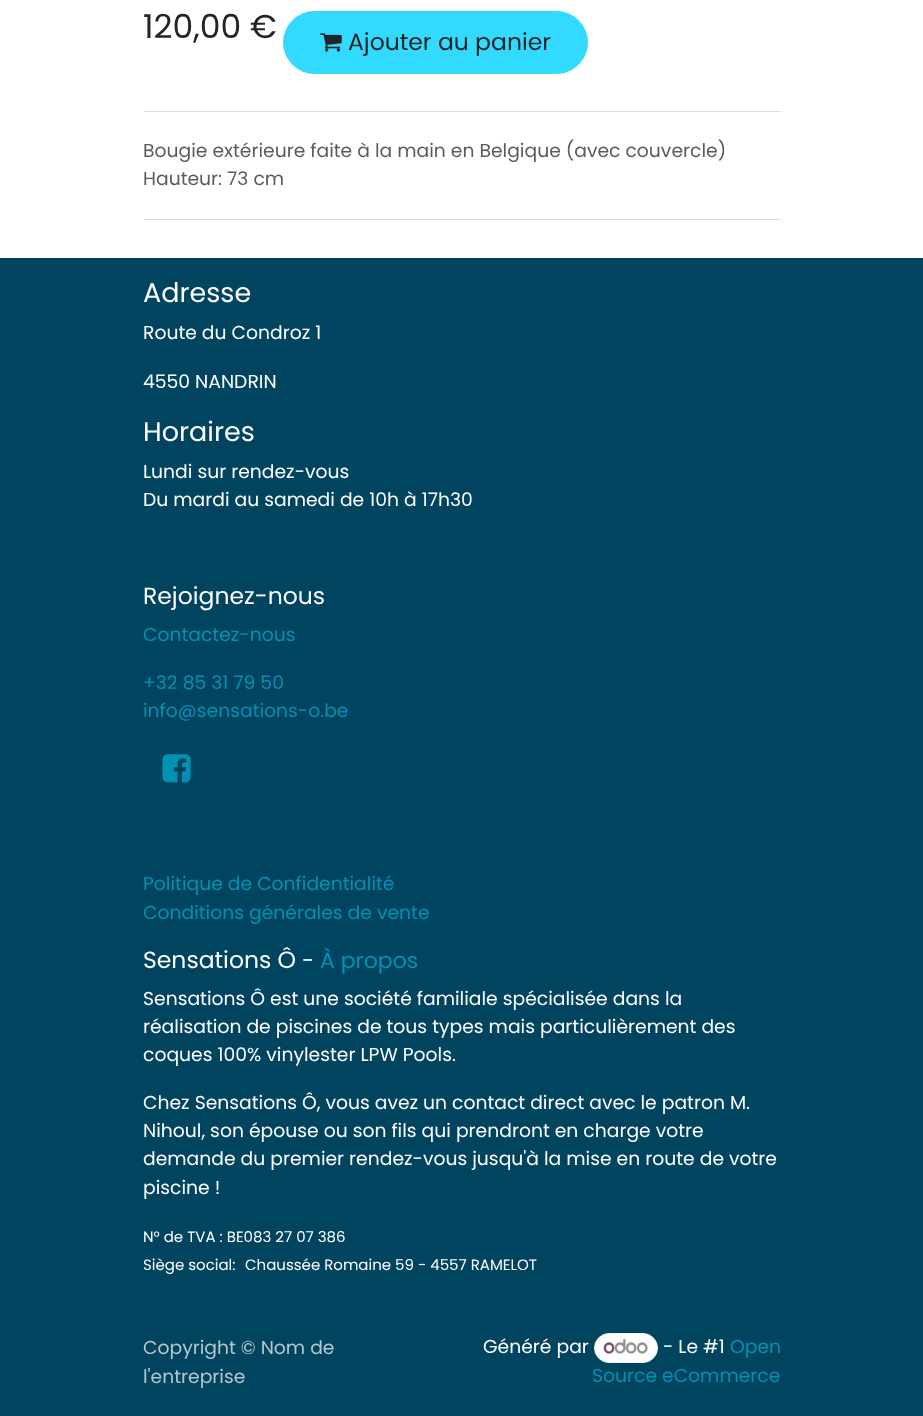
async function draw(canvas) {
  canvas.width = 923;
  canvas.height = 1416;
  const ctx = canvas.getContext('2d');
  ctx.miterLimit = 4;
  ctx.fontKerning = 'normal';
  function label(s, x, y, font, color) {
    ctx.font = font;
    ctx.fillStyle = color;
    ctx.fillText(s, x, y);
  }
  function rect(x, y, w, h, color) {
    ctx.fillStyle = color;
    ctx.fillRect(x, y, w, h);
  }
  async function image(src, x, y, w, h) {
    const img = new Image();
    img.src = src;
    await img.decode();
    ctx.drawImage(img, x, y, w, h);
  }

  rect(0, 0, 923, 1416, '#fff');
  label('120,00 €', 143, 38, '33px Poppins', '#212529');
  ctx.fillStyle = '#33daff';
  ctx.beginPath();
  ctx.roundRect(283.5, 11.5, 304, 62, 31);
  ctx.fill();
  ctx.strokeStyle = '#33daff';
  ctx.stroke();
  await image('assets/img1.png', 320, 33, 22, 19);
  label('Ajouter au panier', 348, 50, '23.5px Poppins', '#212529');
  rect(144, 111, 637, 1, '#dededf');
  label('Bougie extérieure faite à la main en Belgique (avec couvercle)', 143, 157, '18.75px Poppins', '#595c5f');
  label('Hauteur: 73 cm', 143, 185, '18.75px Poppins', '#595c5f');
  rect(144, 219, 637, 1, '#dededf');
  rect(0, 258, 923, 1158, '#004460');
  label('Adresse', 143, 302, '27px Poppins', '#fff');
  label('Route du Condroz 1', 143, 339, '18.75px Poppins', '#fff');
  label('4550 NANDRIN', 143, 388, '18.75px Poppins', '#fff');
  label('Horaires', 143, 441, '27px Poppins', '#fff');
  label('Lundi sur rendez-vous', 143, 478, '18.75px Poppins', '#fff');
  label('Du mardi au samedi de 10h à 17h30', 143, 506, '18.75px Poppins', '#fff');
  label('Rejoignez-nous', 143, 604, '23.5px Poppins', '#fff');
  label('Contactez-nous', 143, 641, '18.75px Poppins', '#0092b3');
  label('+32 85 31 79 50', 143, 689, '18.75px Poppins', '#0092b3');
  label('info@sensations-o.be', 143, 717, '18.75px Poppins', '#0092b3');
  await image('assets/img2.png', 162, 754, 29, 29);
  label('Politique de Confidentialité', 143, 890, '18.75px Poppins', '#0092b3');
  label('Conditions générales de vente', 143, 919, '18.75px Poppins', '#0092b3');
  label('Sensations Ô', 143, 968, '23.5px Poppins', '#fff');
  label('-', 302, 968, '22px Poppins', '#fff');
  label('À propos', 320, 968, '22px Poppins', '#0092b3');
  label('Sensations Ô est une société familiale spécialisée dans la', 143, 1005, '18.75px Poppins', '#fff');
  label('réalisation de piscines de tous types mais particulièrement des', 143, 1033, '18.75px Poppins', '#fff');
  label('coques 100% vinylester LPW Pools.', 143, 1061, '18.75px Poppins', '#fff');
  label('Chez Sensations Ô, vous avez un contact direct avec le patron M.', 143, 1109, '18.75px Poppins', '#fff');
  label('Nihoul, son épouse ou son fils qui prendront en charge votre', 143, 1137, '18.75px Poppins', '#fff');
  label('demande du premier rendez-vous jusqu\'à la mise en route de votre', 143, 1165, '18.75px Poppins', '#fff');
  label('piscine !', 143, 1194, '18.75px Poppins', '#fff');
  label('N° de TVA : BE083 27 07 386', 143, 1242, '15px Poppins', '#fff');
  label('Siège social:', 143, 1270, '15px Poppins', '#fff');
  label('Chaussée Romaine 59 - 4557 RAMELOT', 245, 1270, '15px Poppins', '#fff');
  label('Copyright © Nom de', 143, 1354, '18.75px Poppins', '#b3c7cf');
  label('l\'entreprise', 143, 1383, '18.75px Poppins', '#b3c7cf');
  label('Généré par', 483, 1353, '18.75px Poppins', '#fff');
  ctx.fillStyle = '#fefefe';
  ctx.beginPath();
  ctx.roundRect(594.5, 1333.5, 63, 29, 14.5);
  ctx.fill();
  ctx.strokeStyle = '#f0f3f5';
  ctx.stroke();
  await image('assets/img3.png', 603, 1338, 45, 16);
  label('- Le #1', 663, 1353, '18.75px Poppins', '#fff');
  label('Open', 730, 1353, '18.75px Poppins', '#0092b3');
  label('Source eCommerce', 592, 1382, '18.75px Poppins', '#0092b3');
}

draw(document.querySelector('canvas'));
